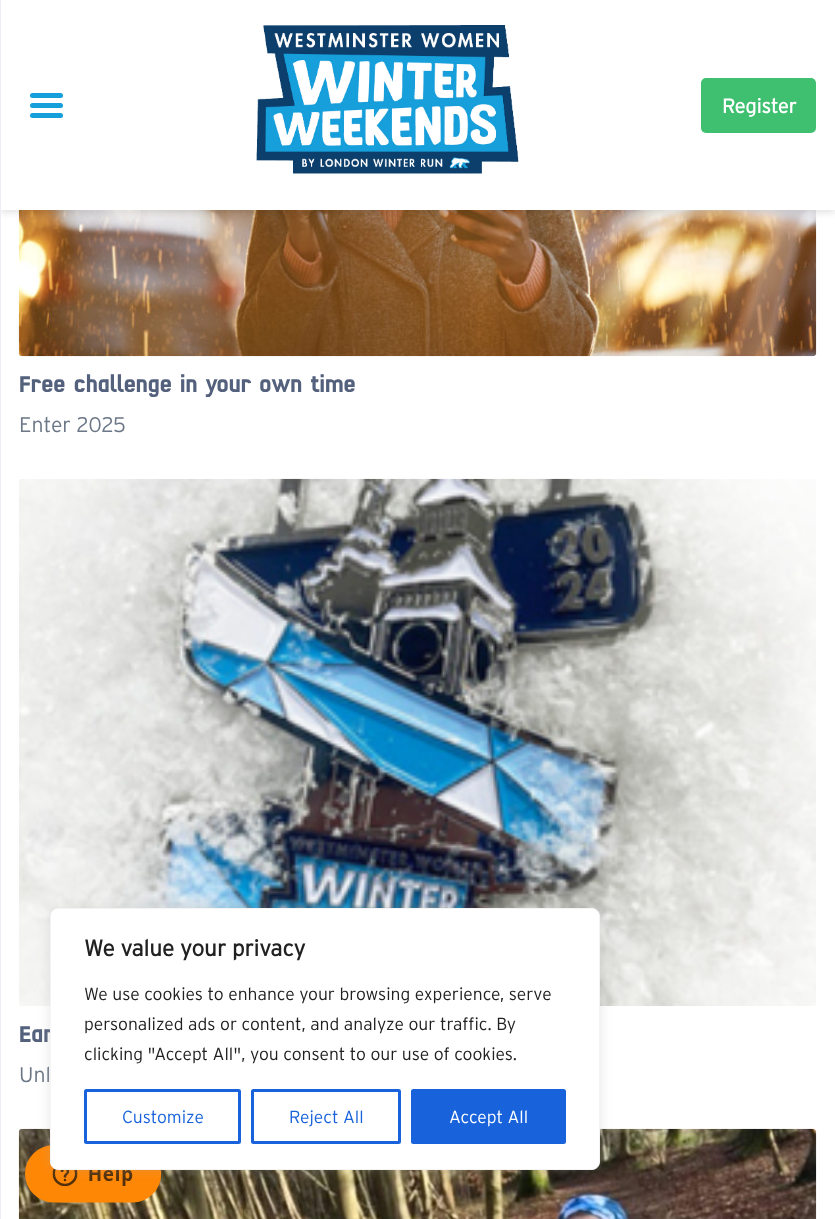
async function draw(canvas) {
  canvas.width = 835;
  canvas.height = 1219;
  const ctx = canvas.getContext('2d');
  ctx.miterLimit = 4;
  ctx.fontKerning = 'normal';
  function label(s, x, y, font, color) {
    ctx.font = font;
    ctx.fillStyle = color;
    ctx.fillText(s, x, y);
  }
  function rect(x, y, w, h, color) {
    ctx.fillStyle = color;
    ctx.fillRect(x, y, w, h);
  }
  function roundedRect(x, y, w, h, r, color) {
    ctx.fillStyle = color;
    ctx.beginPath();
    ctx.roundRect(x, y, w, h, r);
    ctx.fill();
  }
  async function image(src, x, y, w, h) {
    const img = new Image();
    img.src = src;
    await img.decode();
    ctx.drawImage(img, x, y, w, h);
  }

  rect(0, 0, 835, 1219, '#fff');
  await image('assets/img2.png', 18, 210, 799, 147);
  ctx.fillStyle = '#0000001a';
  ctx.filter = 'blur(3px)';
  ctx.beginPath();
  ctx.rect(0, 3, 835, 210);
  ctx.fill();
  ctx.filter = 'none';
  rect(1, 0, 834, 210, '#fff');
  rect(0, 0, 1, 1219, '#ebeef3');
  roundedRect(30, 93, 33, 5, 2.5, '#169fdb');
  roundedRect(30, 103, 33, 5, 2.5, '#169fdb');
  roundedRect(30, 113, 33, 5, 2.5, '#169fdb');
  await image('assets/img1.png', 256, 25, 263, 149);
  roundedRect(701, 78, 115, 55, 5, '#3ec070');
  label('Register', 722, 113, 'bold 20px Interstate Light', '#fff');
  label('Free challenge in your own time', 19, 392, '500 23.75px "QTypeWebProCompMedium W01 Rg"', '#54617d');
  label('Enter 2025', 19, 432, '300 21.25px Interstate Light', '#6c7887');
  await image('assets/img3.png', 19, 478, 797, 529);
  label('Ear', 19, 1042, '500 23.75px "QTypeWebProCompMedium W01 Rg"', '#54617d');
  label('Unl', 19, 1082, '300 21.25px Interstate Light', '#6c7887');
  await image('assets/img4.png', 18, 1128, 799, 91);
  await image('assets/img5.png', 25, 1145, 137, 58);
  ctx.fillStyle = '#acabab4d';
  ctx.filter = 'blur(6px)';
  ctx.beginPath();
  ctx.roundRect(50, 906, 550, 263, 8);
  ctx.fill();
  ctx.filter = 'none';
  ctx.fillStyle = '#fff';
  ctx.beginPath();
  ctx.roundRect(50.5, 908.5, 549, 261, 7.5);
  ctx.fill();
  ctx.strokeStyle = '#f4f4f4';
  ctx.stroke();
  label('We value your privacy', 84, 956, 'bold 22.5px Interstate Light', '#212121');
  label('We use cookies to enhance your browsing experience, serve', 84, 1000, '300 17.5px Interstate Light', '#212121');
  label('personalized ads or content, and analyze our traffic. By', 84, 1030, '300 17.5px Interstate Light', '#212121');
  label('clicking "Accept All", you consent to our use of cookies.', 84, 1060, '300 17.5px Interstate Light', '#212121');
  ctx.beginPath();
  ctx.roundRect(85.5, 1090.5, 154, 52, 1);
  ctx.strokeStyle = '#1863dc';
  ctx.lineWidth = 3;
  ctx.stroke();
  label('Customize', 122, 1123, '300 17.5px Interstate Light', '#1863dc');
  ctx.beginPath();
  ctx.roundRect(252.5, 1090.5, 147, 52, 1);
  ctx.stroke();
  label('Reject All', 289, 1123, '300 17.5px Interstate Light', '#1863dc');
  ctx.beginPath();
  ctx.roundRect(412.5, 1090.5, 152, 52, 1);
  ctx.fill();
  ctx.stroke();
  label('Accept All', 449, 1123, '300 17.5px Interstate Light', '#fff');
}

draw(document.querySelector('canvas'));
